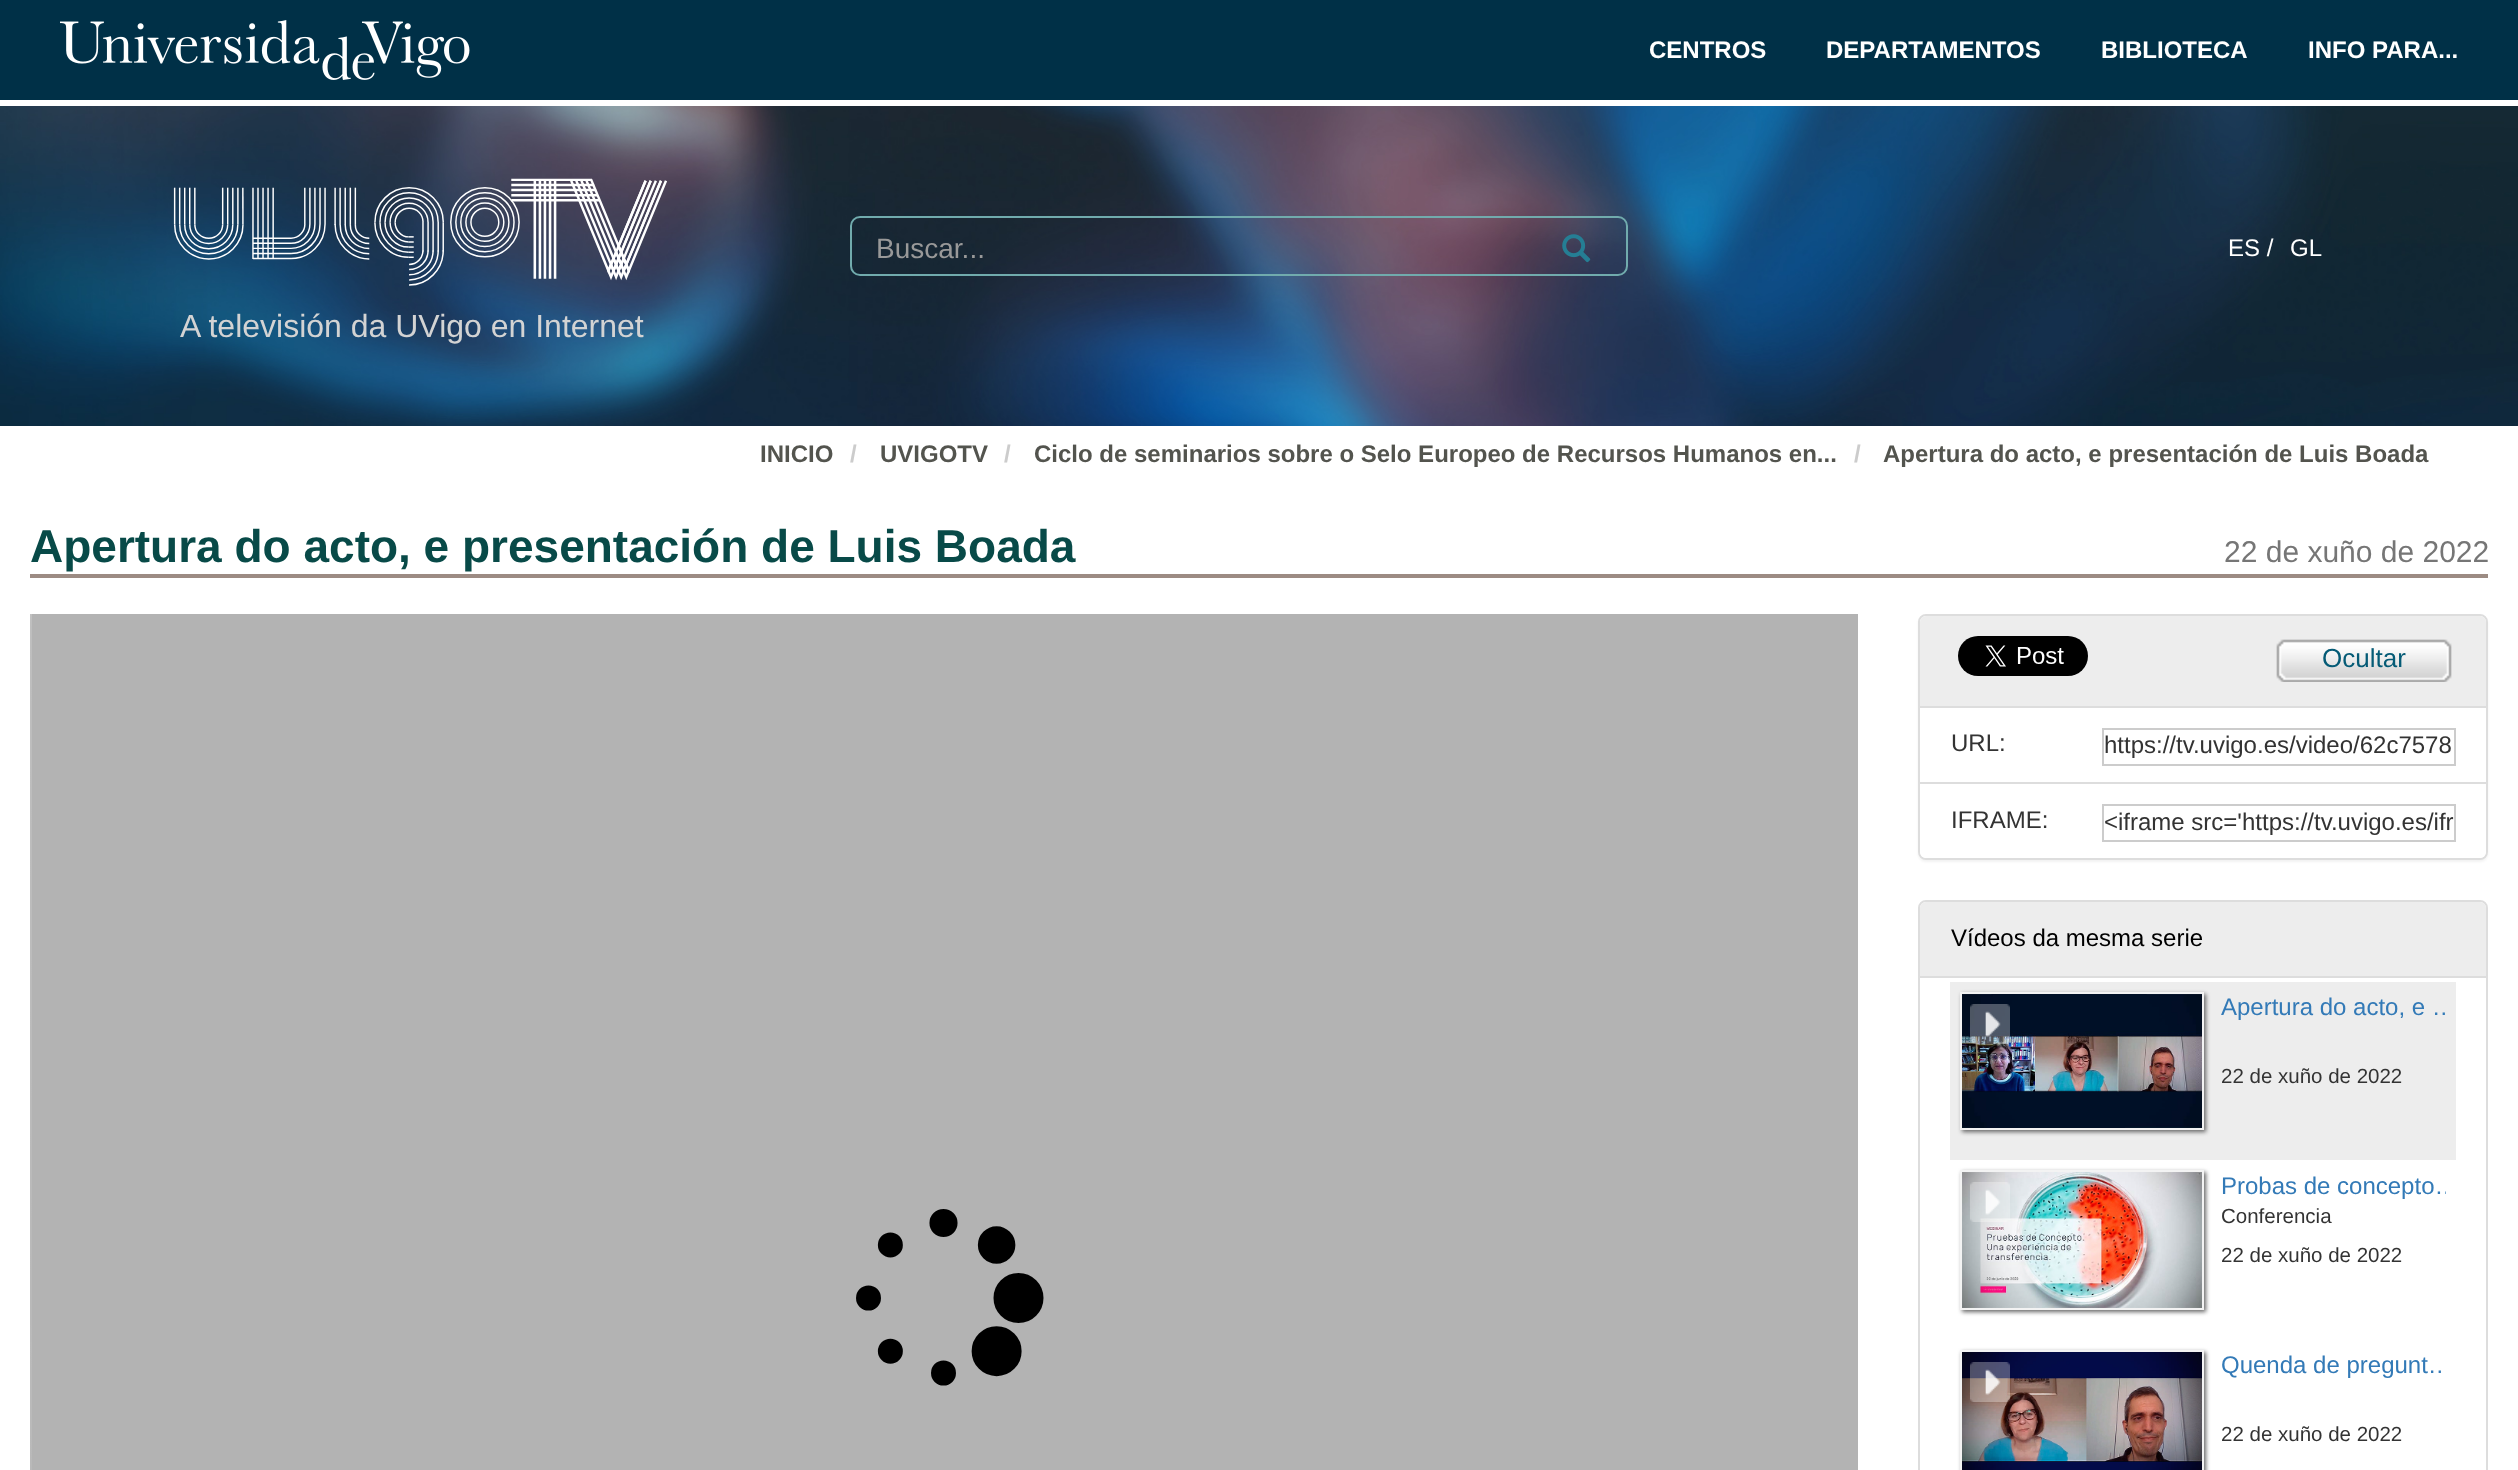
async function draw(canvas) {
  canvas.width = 2518;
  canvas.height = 1470;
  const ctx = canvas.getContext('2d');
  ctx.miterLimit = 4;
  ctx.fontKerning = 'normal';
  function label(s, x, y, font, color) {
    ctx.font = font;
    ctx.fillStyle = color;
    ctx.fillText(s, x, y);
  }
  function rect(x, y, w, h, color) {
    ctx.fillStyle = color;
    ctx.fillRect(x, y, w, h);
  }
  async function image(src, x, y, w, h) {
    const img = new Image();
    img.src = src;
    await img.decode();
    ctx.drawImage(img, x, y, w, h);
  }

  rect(0, 0, 2518, 1470, '#fff');
  rect(0, 0, 2518, 100, '#003047');
  await image('assets/img1.png', 60, 20, 410, 60);
  label('CENTROS', 1649, 58, 'bold 24px Liberation Sans', '#fff');
  label('DEPARTAMENTOS', 1826, 58, 'bold 24px Liberation Sans', '#fff');
  label('BIBLIOTECA', 2101, 58, 'bold 24px Liberation Sans', '#fff');
  label('INFO PARA...', 2308, 58, 'bold 24px Liberation Sans', '#fff');
  await image('assets/img2.png', 0, 106, 2518, 320);
  ctx.beginPath();
  ctx.roundRect(851, 217, 776, 58, 9);
  ctx.strokeStyle = '#71abad';
  ctx.lineWidth = 2;
  ctx.stroke();
  label('Buscar...', 876, 258, '28px Liberation Sans', '#999');
  await image('assets/img3.png', 1562, 234, 29, 29);
  label('ES /', 2228, 256, '24px Liberation Sans', '#fff');
  label('GL', 2290, 256, '24px Liberation Sans', '#fff');
  await image('assets/img4.png', 173, 178, 494, 108);
  label('A televisión da UVigo en Internet', 180, 337, '32px Liberation Sans', '#d3d3d3');
  label('INICIO', 760, 462, 'bold 24px Liberation Sans', '#53544e');
  label('/', 850, 462, 'bold 24px Liberation Sans', '#ccc');
  label('UVIGOTV', 880, 462, 'bold 24px Liberation Sans', '#53544e');
  label('/', 1004, 462, 'bold 24px Liberation Sans', '#ccc');
  label('Ciclo de seminarios sobre o Selo Europeo de Recursos Humanos en...', 1034, 462, 'bold 24px Liberation Sans', '#53544e');
  label('/', 1854, 462, 'bold 24px Liberation Sans', '#ccc');
  label('Apertura do acto, e presentación de Luis Boada', 1883, 462, 'bold 24px Liberation Sans', '#53544e');
  rect(30, 574, 2458, 4, '#9c8b83');
  label('Apertura do acto, e presentación de Luis Boada', 30, 562, 'bold 46px Liberation Sans', '#084a48');
  label('22 de xuño de 2022', 2224, 562, '30px Liberation Sans', '#767676');
  await image('assets/img5.png', 30, 614, 1828, 856);
  ctx.fillStyle = '#0000000d';
  ctx.filter = 'blur(1px)';
  ctx.beginPath();
  ctx.roundRect(1918, 616, 570, 246, 8);
  ctx.fill();
  ctx.filter = 'none';
  ctx.fillStyle = '#fff';
  ctx.beginPath();
  ctx.roundRect(1919, 615, 568, 244, 7);
  ctx.fill();
  ctx.strokeStyle = '#ddd';
  ctx.stroke();
  ctx.fillStyle = '#ededed';
  ctx.beginPath();
  ctx.roundRect(1920, 616, 566, 92, [6, 6, 0, 0]);
  ctx.fill();
  rect(1920, 706, 566, 2, '#ddd');
  await image('assets/img6.png', 1958, 636, 130, 40);
  await image('assets/img7.png', 2276, 639, 176, 43);
  label('Ocultar', 2322, 667, '26px Liberation Sans', '#055b76');
  label('URL:', 1951, 751, '24px Liberation Sans', '#333');
  ctx.strokeStyle = '#ccc';
  ctx.strokeRect(2103, 729, 352, 36);
  label('https://tv.uvigo.es/video/62c7578', 2104, 753, '24px Liberation Sans', '#333');
  ctx.fillStyle = '#fff';
  ctx.beginPath();
  ctx.roundRect(1920, 782, 566, 76, [0, 0, 6, 6]);
  ctx.fill();
  rect(1920, 782, 566, 2, '#ddd');
  label('IFRAME:', 1951, 828, '24px Liberation Sans', '#333');
  ctx.strokeRect(2103, 805, 352, 36);
  label('<iframe src=\'https://tv.uvigo.es/ifr', 2104, 830, '24px Liberation Sans', '#333');
  ctx.beginPath();
  ctx.roundRect(1919, 901, 568, 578, 7);
  ctx.strokeStyle = '#ddd';
  ctx.stroke();
  ctx.fillStyle = '#ededed';
  ctx.beginPath();
  ctx.roundRect(1920, 902, 566, 76, [6, 6, 0, 0]);
  ctx.fill();
  rect(1920, 976, 566, 2, '#ddd');
  label('Vídeos da mesma serie', 1951, 946, '24px Liberation Sans', '#000');
  rect(1950, 982, 506, 178, '#ededed');
  ctx.fillStyle = '#666';
  ctx.filter = 'blur(2px)';
  ctx.beginPath();
  ctx.rect(1962, 994, 244, 138);
  ctx.fill();
  ctx.filter = 'none';
  rect(1960, 992, 244, 138, '#f3f3f3');
  await image('assets/img8.png', 1962, 994, 240, 134);
  await image('assets/img9.png', 1970, 1004, 40, 40);
  ctx.save();
  ctx.beginPath();
  ctx.rect(2220, 992, 226, 28);
  ctx.clip();
  label('Apertura do acto, e …', 2221, 1015, '24px Liberation Sans', '#337ab7');
  ctx.restore();
  label('22 de xuño de 2022', 2221, 1083, '20.5px Liberation Sans', '#333');
  ctx.fillStyle = '#666';
  ctx.filter = 'blur(2px)';
  ctx.beginPath();
  ctx.rect(1962, 1172, 244, 140);
  ctx.fill();
  ctx.filter = 'none';
  rect(1960, 1170, 244, 140, '#f3f3f3');
  await image('assets/img10.png', 1962, 1172, 240, 136);
  await image('assets/img11.png', 1970, 1182, 40, 40);
  ctx.save();
  ctx.beginPath();
  ctx.rect(2220, 1170, 226, 30);
  ctx.clip();
  label('Probas de concepto…', 2221, 1194, '24px Liberation Sans', '#337ab7');
  ctx.restore();
  label('Conferencia', 2221, 1223, '20.5px Liberation Sans', '#333');
  label('22 de xuño de 2022', 2221, 1262, '20.5px Liberation Sans', '#333');
  ctx.fillStyle = '#666';
  ctx.filter = 'blur(2px)';
  ctx.beginPath();
  ctx.rect(1962, 1352, 244, 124);
  ctx.fill();
  ctx.filter = 'none';
  rect(1960, 1350, 244, 120, '#f3f3f3');
  await image('assets/img12.png', 1962, 1352, 240, 118);
  await image('assets/img13.png', 1970, 1362, 40, 40);
  ctx.save();
  ctx.beginPath();
  ctx.rect(2220, 1350, 226, 28);
  ctx.clip();
  label('Quenda de pregunt…', 2221, 1373, '24px Liberation Sans', '#337ab7');
  ctx.restore();
  label('22 de xuño de 2022', 2221, 1441, '20.5px Liberation Sans', '#333');
}

draw(document.querySelector('canvas'));
